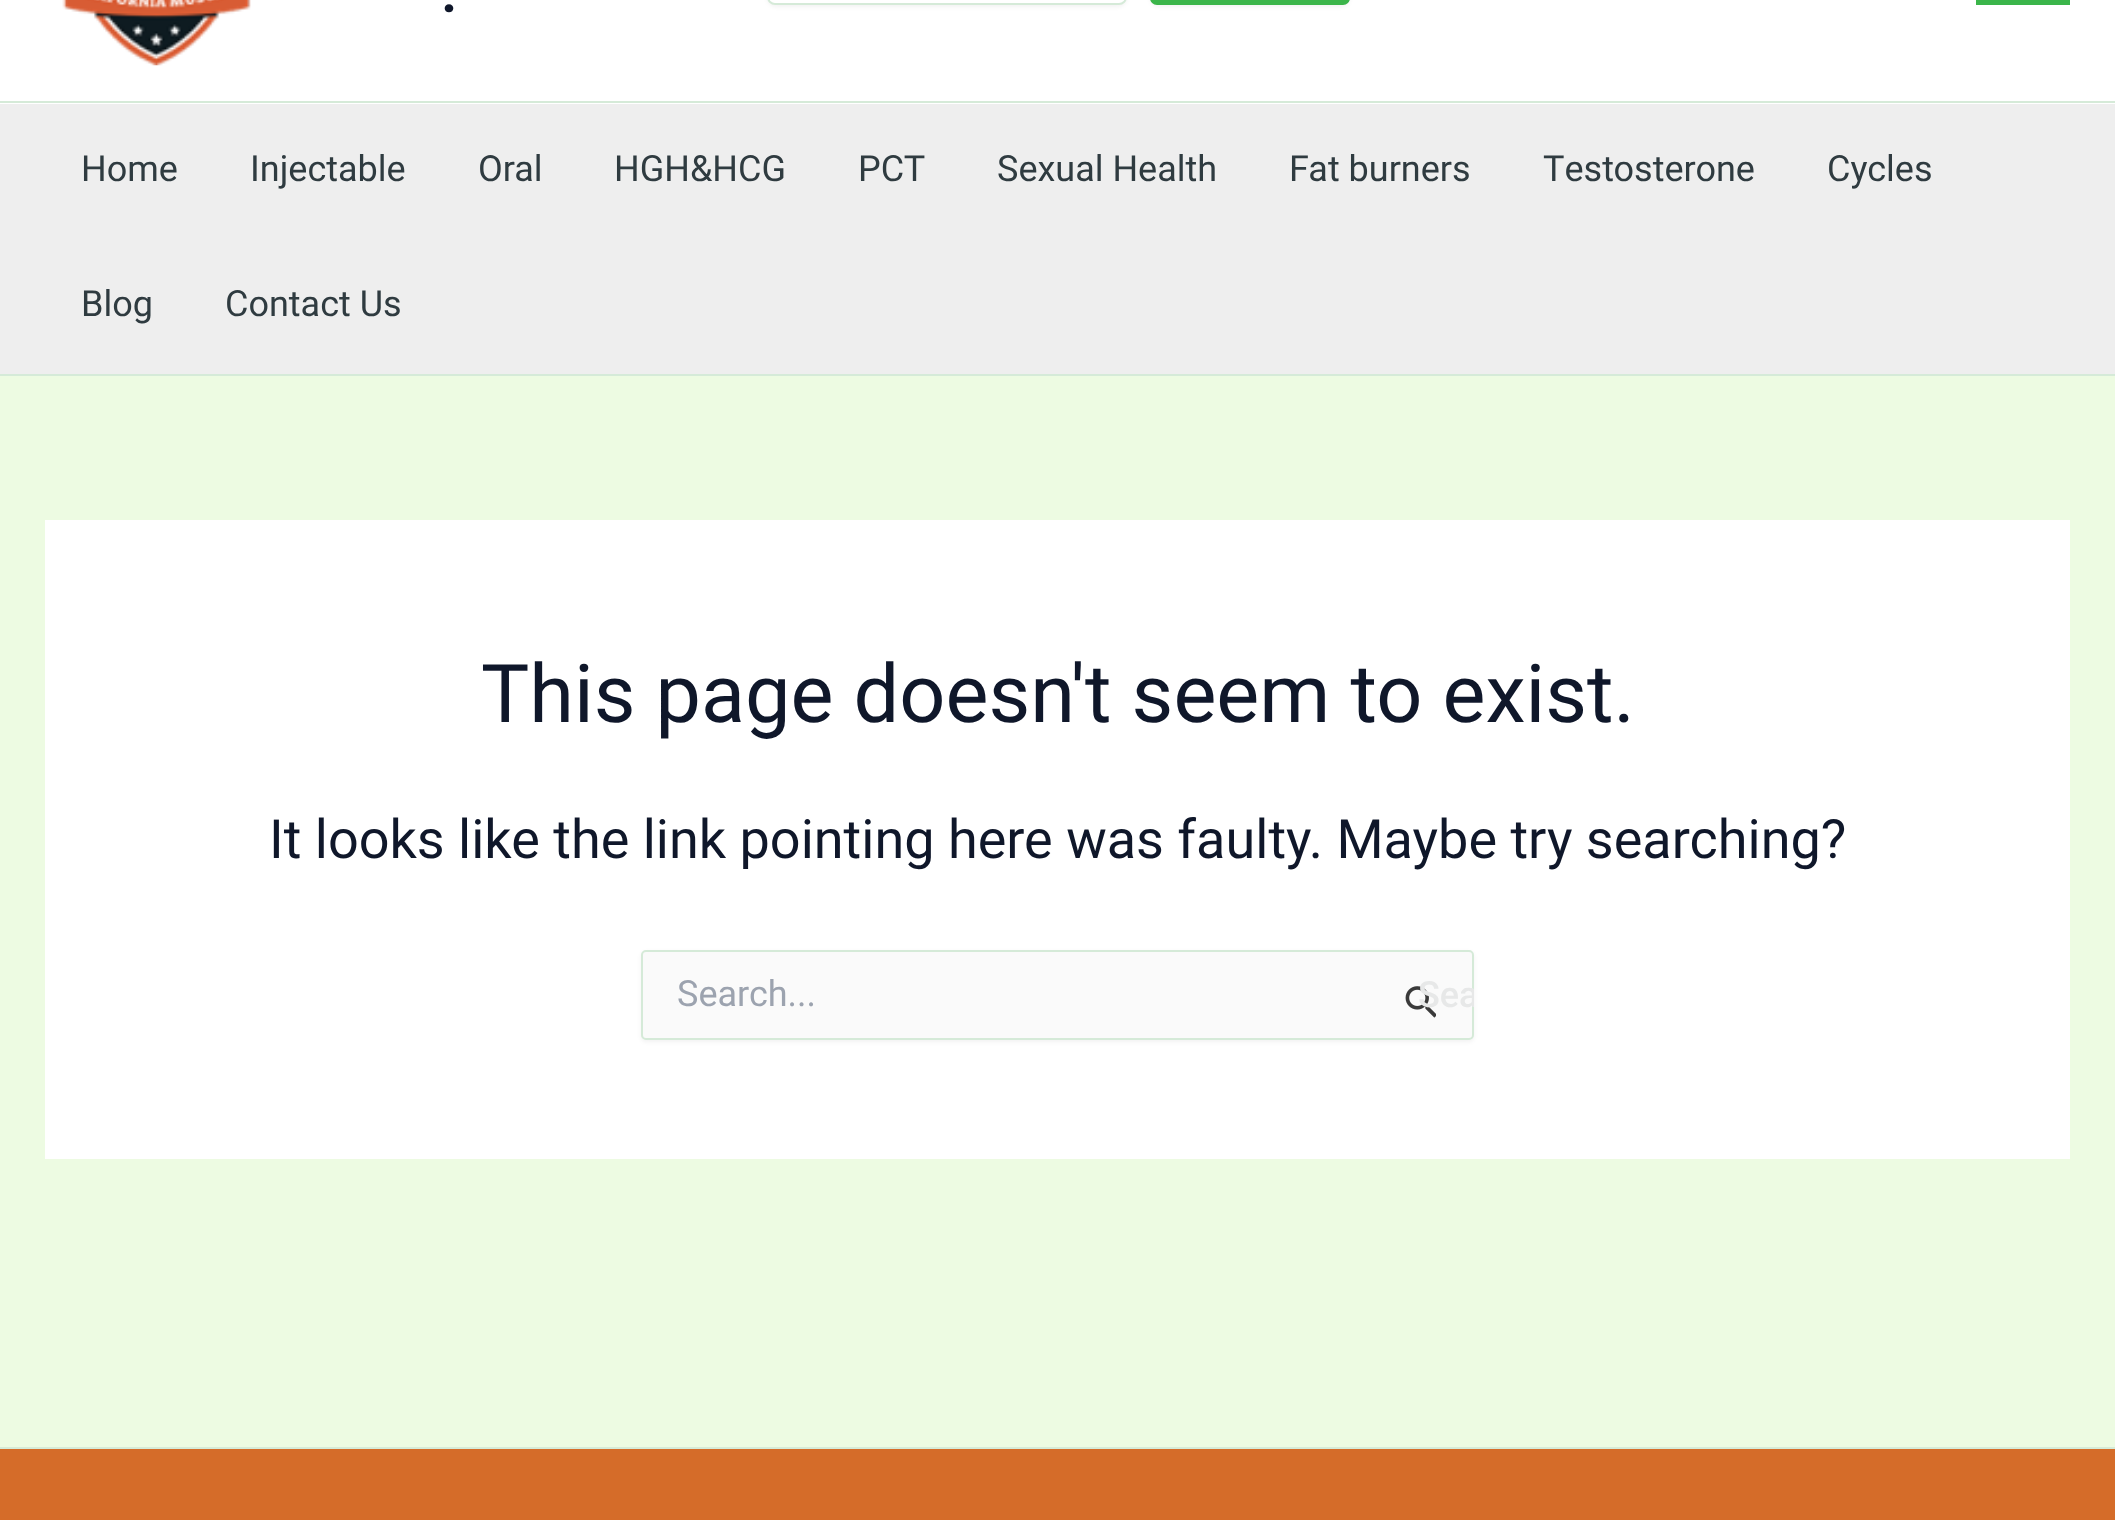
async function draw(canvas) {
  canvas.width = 2115;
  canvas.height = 1520;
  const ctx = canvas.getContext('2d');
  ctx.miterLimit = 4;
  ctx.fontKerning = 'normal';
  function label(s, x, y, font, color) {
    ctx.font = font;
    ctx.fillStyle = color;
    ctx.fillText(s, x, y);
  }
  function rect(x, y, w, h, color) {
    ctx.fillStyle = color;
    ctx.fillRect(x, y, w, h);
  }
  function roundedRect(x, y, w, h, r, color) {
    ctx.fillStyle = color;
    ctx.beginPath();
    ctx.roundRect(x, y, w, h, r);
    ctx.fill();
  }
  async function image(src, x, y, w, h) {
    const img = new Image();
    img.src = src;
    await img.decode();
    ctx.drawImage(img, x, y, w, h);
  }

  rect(0, 0, 2115, 1520, '#edfbe2');
  rect(0, 0, 2115, 104, '#fff');
  rect(0, 101, 2115, 2, '#d5ead8');
  ctx.fillStyle = '#0000000d';
  ctx.filter = 'blur(2px)';
  ctx.beginPath();
  ctx.roundRect(767, -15, 360, 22, 9);
  ctx.fill();
  ctx.filter = 'none';
  ctx.fillStyle = '#fff';
  ctx.beginPath();
  ctx.roundRect(768, -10, 358, 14, 8);
  ctx.fill();
  ctx.strokeStyle = '#d5ead8';
  ctx.lineWidth = 2;
  ctx.stroke();
  ctx.fillStyle = '#0000000d';
  ctx.filter = 'blur(2px)';
  ctx.beginPath();
  ctx.roundRect(1150, -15, 200, 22, 9);
  ctx.fill();
  ctx.filter = 'none';
  roundedRect(1150, -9, 200, 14, 9, '#3bb54a');
  ctx.strokeStyle = '#3bb54a';
  ctx.lineWidth = 5;
  ctx.strokeRect(1978.5, -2.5, 89, 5);
  await image('assets/img1.png', 62, 0, 189, 66);
  label('.', 441, 12, '600 58px Roboto', '#0f172a');
  rect(0, 104, 2115, 270, '#eee');
  rect(0, 374, 2115, 2, '#d5ead8');
  label('Home', 81, 181, '36px Roboto', '#2f3b40');
  label('Injectable', 250, 181, '36px Roboto', '#2f3b40');
  label('Oral', 478, 181, '36px Roboto', '#2f3b40');
  label('HGH&HCG', 614, 181, '36px Roboto', '#2f3b40');
  label('PCT', 858, 181, '36px Roboto', '#2f3b40');
  label('Sexual Health', 997, 181, '36px Roboto', '#2f3b40');
  label('Fat burners', 1289, 181, '36px Roboto', '#2f3b40');
  label('Tеstosterone', 1543, 181, '36px Roboto', '#2f3b40');
  label('Cycles', 1827, 181, '36px Roboto', '#2f3b40');
  label('Blog', 81, 316, '36px Roboto', '#2f3b40');
  label('Contact Us', 225, 316, '36px Roboto', '#2f3b40');
  rect(45, 520, 2025, 639, '#fff');
  label('This page doesn\'t seem to exist.', 481, 722, '81px Roboto', '#0f172a');
  label('It looks like the link pointing here was faulty. Maybe try searching?', 269, 858, '54px Roboto', '#0f172a');
  ctx.fillStyle = '#0000000d';
  ctx.filter = 'blur(2px)';
  ctx.beginPath();
  ctx.roundRect(641, 952, 833, 90, 5);
  ctx.fill();
  ctx.filter = 'none';
  ctx.fillStyle = '#fafafa';
  ctx.beginPath();
  ctx.roundRect(642, 951, 831, 88, 4);
  ctx.fill();
  ctx.strokeStyle = '#d5ead8';
  ctx.lineWidth = 2;
  ctx.stroke();
  label('Search...', 677, 1006, '36px Roboto', '#9ca3af');
  await image('assets/img2.png', 1405, 986, 31, 32);
  ctx.save();
  ctx.beginPath();
  ctx.roundRect(1373, 950, 101, 94, 5);
  ctx.clip();
  label('Sea', 1418, 1007, '500 36px Roboto', '#e7e8e8');
  ctx.restore();
  rect(0, 1449, 2115, 71, '#d56c29');
  rect(0, 1447, 2115, 2, '#d5ead8');
}

draw(document.querySelector('canvas'));
